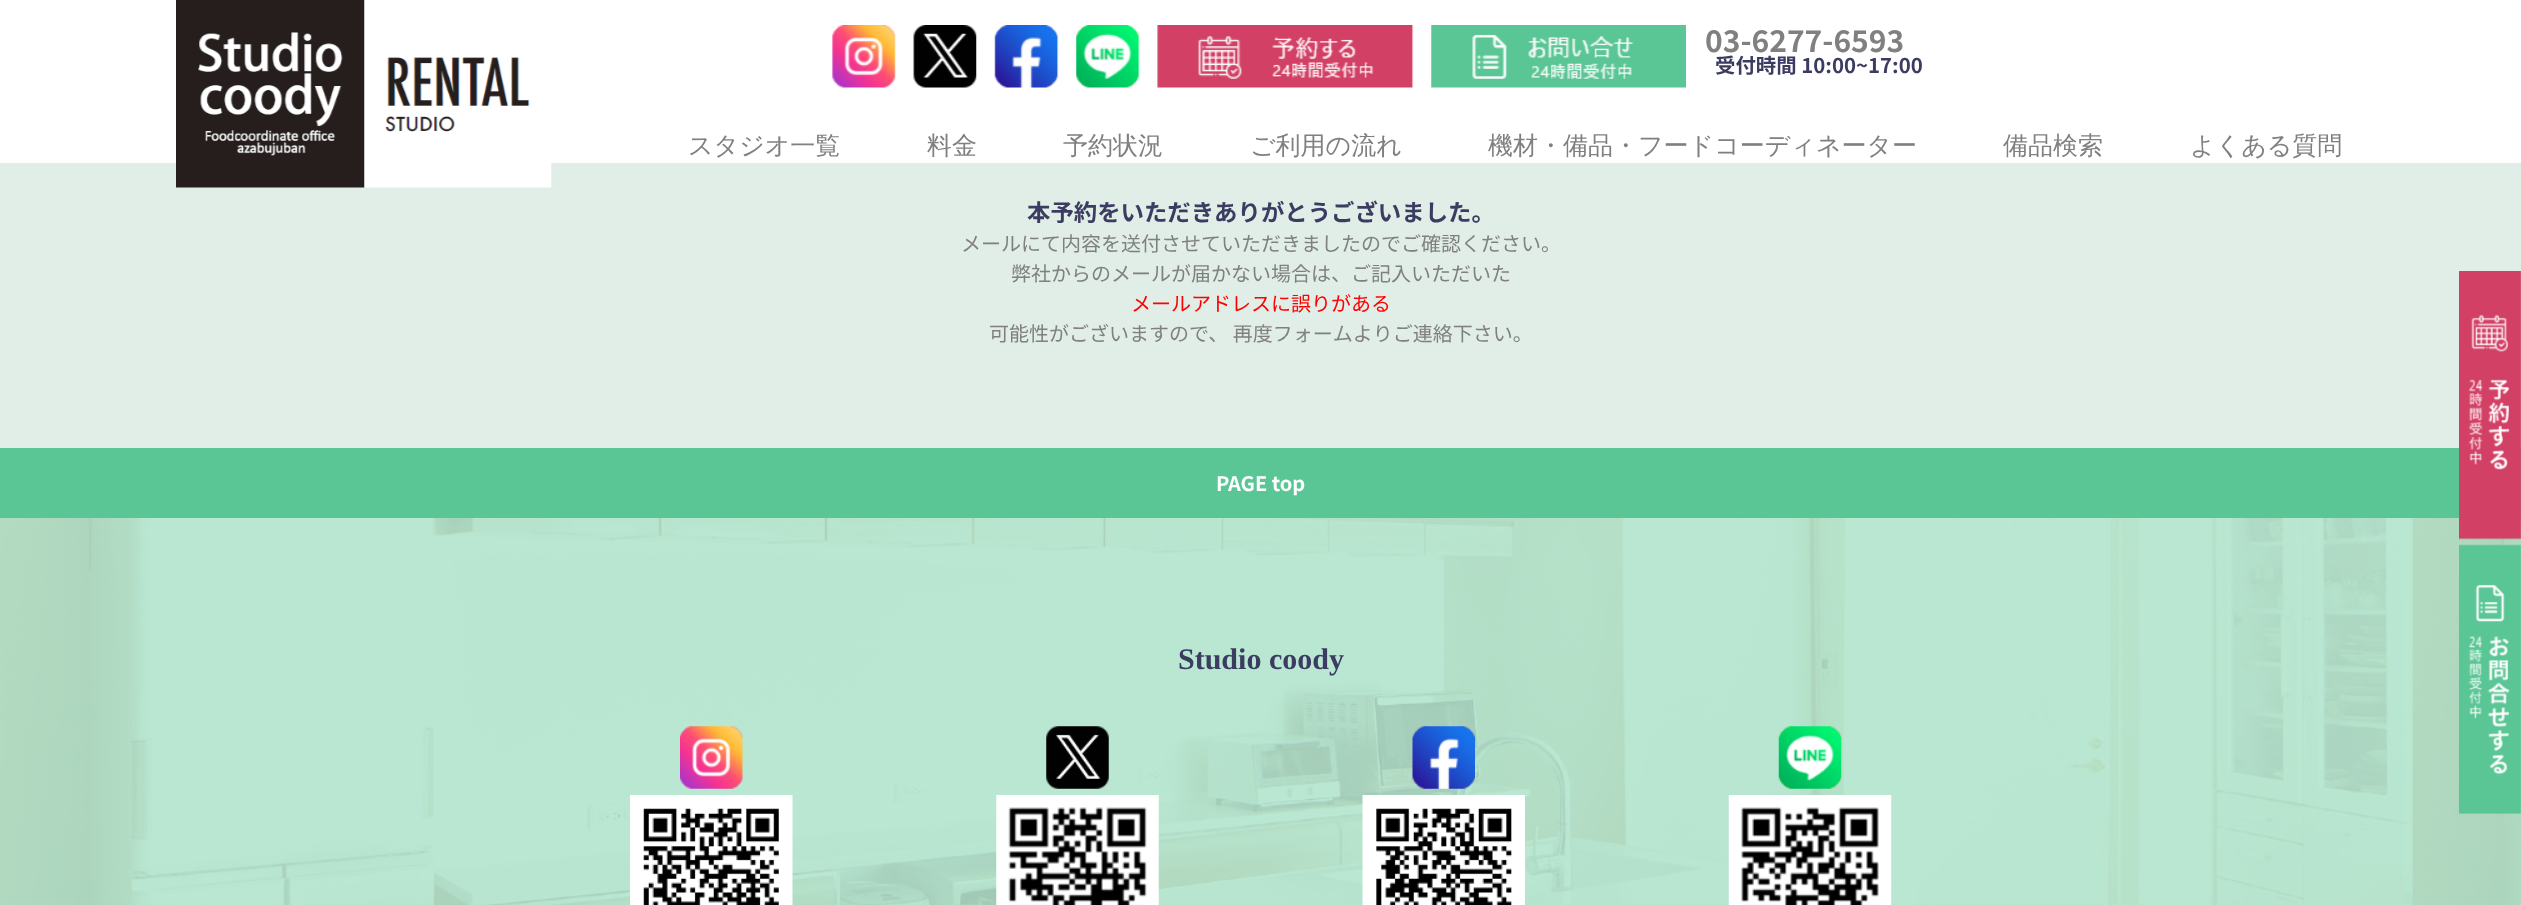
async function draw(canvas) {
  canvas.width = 2521;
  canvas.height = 905;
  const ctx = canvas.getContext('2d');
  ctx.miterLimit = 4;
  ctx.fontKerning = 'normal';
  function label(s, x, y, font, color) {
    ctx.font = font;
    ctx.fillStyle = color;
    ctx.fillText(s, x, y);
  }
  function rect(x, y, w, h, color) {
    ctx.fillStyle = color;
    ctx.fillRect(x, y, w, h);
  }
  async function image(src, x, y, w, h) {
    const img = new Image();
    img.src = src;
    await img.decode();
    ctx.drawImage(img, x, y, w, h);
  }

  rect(0, 0, 2521, 905, '#fff');
  rect(0, 163, 2521, 285, '#e0eee7');
  await image('assets/img1.png', 176, 0, 376, 188);
  await image('assets/img2.png', 832, 25, 64, 63);
  await image('assets/img3.png', 913, 25, 64, 63);
  await image('assets/img4.png', 994, 25, 65, 63);
  await image('assets/img5.png', 1076, 25, 64, 63);
  await image('assets/img6.png', 1157, 25, 257, 63);
  await image('assets/img7.png', 1431, 25, 255, 63);
  label('03-6277-6593', 1705, 52, 'bold 30px Noto Sans JP', '#808080');
  label('受付時間 10:00~17:00', 1715, 73, 'bold 20.4px Noto Sans JP', '#3c3c62');
  label('スタジオ一覧', 688, 154, '500 25px WenQuanYi Zen Hei', '#808080');
  label('料金', 927, 154, '500 25px WenQuanYi Zen Hei', '#808080');
  label('予約状況', 1063, 154, '500 25px WenQuanYi Zen Hei', '#808080');
  label('ご利用の流れ', 1250, 154, '500 25px WenQuanYi Zen Hei', '#808080');
  label('機材・備品・フードコーディネーター', 1488, 154, '500 25px WenQuanYi Zen Hei', '#808080');
  label('備品検索', 2003, 154, '500 25px WenQuanYi Zen Hei', '#808080');
  label('よくある質問', 2190, 154, '500 25px WenQuanYi Zen Hei', '#808080');
  await image('assets/img10.png', 0, 518, 2521, 387);
  rect(0, 448, 2521, 70, '#5bc695');
  await image('assets/img8.png', 2459, 271, 62, 269);
  await image('assets/img9.png', 2459, 544, 62, 270);
  label('本予約をいただきありがとうございました。', 1027, 221, 'bold 23.4px Noto Sans JP', '#3c3c62');
  label('メールにて内容を送付させていただきましたのでご確認ください。', 961, 251, '20px Noto Sans JP', '#808080');
  label('弊社からのメールが届かない場合は、ご記入いただいた', 1011, 281, '20px Noto Sans JP', '#808080');
  label('メールアドレスに誤りがある', 1131, 311, '20px Noto Sans JP', '#f00');
  label('可能性がございますので、 再度フォームよりご連絡下さい。', 989, 341, '20px Noto Sans JP', '#808080');
  label('PAGE top', 1216, 491, 'bold 20px Noto Sans JP', '#fff');
  label('Studio coody', 1178, 669, 'bold 30px Liberation Serif', '#3c3c62');
  await image('assets/img11.png', 680, 726, 63, 63);
  await image('assets/img12.png', 630, 795, 163, 110);
  await image('assets/img13.png', 1046, 726, 63, 63);
  await image('assets/img14.png', 996, 795, 163, 110);
  await image('assets/img15.png', 1412, 726, 63, 63);
  await image('assets/img16.png', 1362, 795, 163, 110);
  await image('assets/img17.png', 1778, 726, 64, 63);
  await image('assets/img18.png', 1728, 795, 164, 110);
}

draw(document.querySelector('canvas'));
